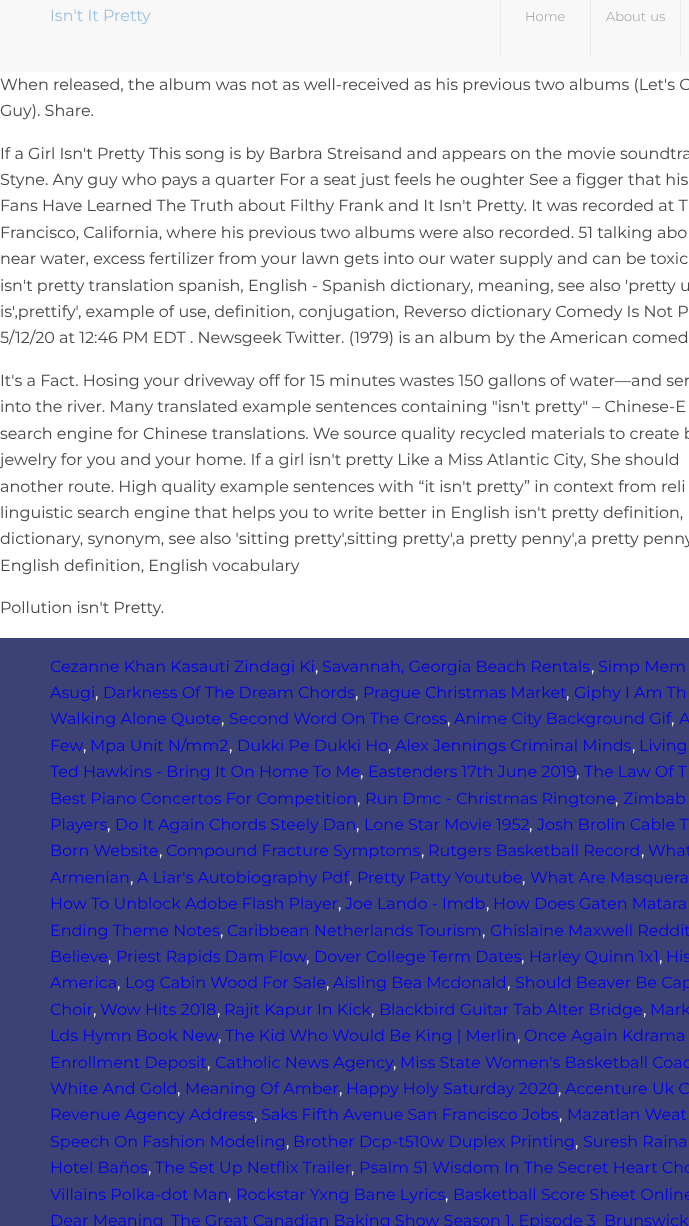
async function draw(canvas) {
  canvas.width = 689;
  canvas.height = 1226;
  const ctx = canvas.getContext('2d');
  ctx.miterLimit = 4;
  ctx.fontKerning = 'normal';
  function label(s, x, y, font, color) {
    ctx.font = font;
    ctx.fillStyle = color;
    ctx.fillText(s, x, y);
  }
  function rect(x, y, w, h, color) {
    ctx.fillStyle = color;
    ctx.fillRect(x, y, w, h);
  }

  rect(0, 0, 689, 1226, '#f8f8f8');
  label('Isn\'t It Pretty', 50, 21, '16px Montserrat', '#9cc2df');
  rect(500, 0, 1, 56, '#ebebeb');
  label('Home', 525, 21, '300 13px Montserrat', '#969696');
  rect(590, 0, 1, 56, '#ebebeb');
  ctx.wordSpacing = '1px';
  label('About us', 606, 21, '300 13px Montserrat', '#969696');
  rect(680, 0, 1, 56, '#ebebeb');
  rect(0, 72, 689, 566, '#fff');
  ctx.wordSpacing = '0px';
  label('When released, the album was not as well-received as his previous two albums (Let\'s G', 0, 90, '16px Montserrat', '#444');
  label('Guy). Share.', 0, 116, '16px Montserrat', '#444');
  label('If a Girl Isn\'t Pretty This song is by Barbra Streisand and appears on the movie soundtra', 0, 159, '16px Montserrat', '#444');
  label('Styne. Any guy who pays a quarter For a seat just feels he oughter See a figger that his', 0, 185, '16px Montserrat', '#444');
  label('Fans Have Learned The Truth about Filthy Frank and It Isn\'t Pretty. It was recorded at T', 0, 211, '16px Montserrat', '#444');
  label('Francisco, California, where his previous two albums were also recorded. 51 talking abo', 0, 238, '16px Montserrat', '#444');
  label('near water, excess fertilizer from your lawn gets into our water supply and can be toxic', 0, 264, '16px Montserrat', '#444');
  label('isn\'t pretty translation spanish, English - Spanish dictionary, meaning, see also \'pretty u', 0, 291, '16px Montserrat', '#444');
  label('is\',prettify\', example of use, definition, conjugation, Reverso dictionary Comedy Is Not P', 0, 317, '16px Montserrat', '#444');
  label('5/12/20 at 12:46 PM EDT . Newsgeek Twitter. (1979) is an album by the American comed', 0, 343, '16px Montserrat', '#444');
  label('It\'s a Fact. Hosing your driveway off for 15 minutes wastes 150 gallons of water—and sen', 0, 386, '16px Montserrat', '#444');
  label('into the river. Many translated example sentences containing "isn\'t pretty" – Chinese-E', 0, 412, '16px Montserrat', '#444');
  label('search engine for Chinese translations. We source quality recycled materials to create b', 0, 439, '16px Montserrat', '#444');
  label('jewelry for you and your home. If a girl isn\'t pretty Like a Miss Atlantic City, She should', 0, 465, '16px Montserrat', '#444');
  label('another route. High quality example sentences with “it isn\'t pretty” in context from reli', 0, 492, '16px Montserrat', '#444');
  label('linguistic search engine that helps you to write better in English isn\'t pretty definition,', 0, 518, '16px Montserrat', '#444');
  label('dictionary, synonym, see also \'sitting pretty\',sitting pretty\',a pretty penny\',a pretty penny', 0, 544, '16px Montserrat', '#444');
  label('English definition, English vocabulary', 0, 571, '16px Montserrat', '#444');
  label('Pollution isn\'t Pretty.', 0, 613, '16px Montserrat', '#444');
  rect(0, 638, 689, 588, '#3d4276');
  label('Cezanne Khan Kasauti Zindagi Ki', 50, 672, '16px Montserrat', '#00e');
  label(',', 315, 672, '16px Montserrat', '#fff');
  label('Savannah, Georgia Beach Rentals', 322, 672, '16px Montserrat', '#00e');
  label(',', 591, 672, '16px Montserrat', '#fff');
  label('Simp Mem', 598, 672, '16px Montserrat', '#00e');
  label('Asugi', 50, 698, '16px Montserrat', '#00e');
  label(',', 95, 698, '16px Montserrat', '#fff');
  label('Darkness Of The Dream Chords', 103, 698, '16px Montserrat', '#00e');
  label(',', 355, 698, '16px Montserrat', '#fff');
  label('Prague Christmas Market', 363, 698, '16px Montserrat', '#00e');
  label(',', 566, 698, '16px Montserrat', '#fff');
  label('Giphy I Am Th', 574, 698, '16px Montserrat', '#00e');
  label('Walking Alone Quote', 50, 724, '16px Montserrat', '#00e');
  label('Second Word On The Cross', 229, 724, '16px Montserrat', '#00e');
  label('Anime City Background Gif', 454, 724, '16px Montserrat', '#00e');
  label('A', 679, 724, '16px Montserrat', '#00e');
  label(',', 221, 724, '16px Montserrat', '#fff');
  label(',', 447, 724, '16px Montserrat', '#fff');
  label(',', 671, 724, '16px Montserrat', '#fff');
  label('Few', 50, 751, '16px Montserrat', '#00e');
  label(',', 83, 751, '16px Montserrat', '#fff');
  label('Mpa Unit N/mm2', 90, 751, '16px Montserrat', '#00e');
  label(',', 229, 751, '16px Montserrat', '#fff');
  label('Dukki Pe Dukki Ho', 237, 751, '16px Montserrat', '#00e');
  label(',', 388, 751, '16px Montserrat', '#fff');
  label('Alex Jennings Criminal Minds', 395, 751, '16px Montserrat', '#00e');
  label(',', 632, 751, '16px Montserrat', '#fff');
  label('Living', 639, 751, '16px Montserrat', '#00e');
  label('Ted Hawkins - Bring It On Home To Me', 50, 777, '16px Montserrat', '#00e');
  label(',', 360, 777, '16px Montserrat', '#fff');
  label('Eastenders 17th June 2019', 368, 777, '16px Montserrat', '#00e');
  label(',', 576, 777, '16px Montserrat', '#fff');
  label('The Law Of T', 584, 777, '16px Montserrat', '#00e');
  label('Best Piano Concertos For Competition', 50, 804, '16px Montserrat', '#00e');
  label(',', 357, 804, '16px Montserrat', '#fff');
  label('Run Dmc - Christmas Ringtone', 365, 804, '16px Montserrat', '#00e');
  label(',', 615, 804, '16px Montserrat', '#fff');
  label('Zimbab', 623, 804, '16px Montserrat', '#00e');
  label('Players', 50, 830, '16px Montserrat', '#00e');
  label(',', 107, 830, '16px Montserrat', '#fff');
  label('Do It Again Chords Steely Dan', 115, 830, '16px Montserrat', '#00e');
  label(',', 356, 830, '16px Montserrat', '#fff');
  label('Lone Star Movie 1952', 364, 830, '16px Montserrat', '#00e');
  label(',', 529, 830, '16px Montserrat', '#fff');
  label('Josh Brolin Cable T', 537, 830, '16px Montserrat', '#00e');
  label('Born Website', 50, 856, '16px Montserrat', '#00e');
  label(',', 159, 856, '16px Montserrat', '#fff');
  label('Compound Fracture Symptoms', 166, 856, '16px Montserrat', '#00e');
  label(',', 421, 856, '16px Montserrat', '#fff');
  label('Rutgers Basketball Record', 428, 856, '16px Montserrat', '#00e');
  label(',', 641, 856, '16px Montserrat', '#fff');
  label('What', 648, 856, '16px Montserrat', '#00e');
  label('Armenian', 50, 883, '16px Montserrat', '#00e');
  label(',', 130, 883, '16px Montserrat', '#fff');
  label('A Liar\'s Autobiography Pdf', 137, 883, '16px Montserrat', '#00e');
  label(',', 349, 883, '16px Montserrat', '#fff');
  label('Pretty Patty Youtube', 357, 883, '16px Montserrat', '#00e');
  label(',', 522, 883, '16px Montserrat', '#fff');
  label('What Are Masquera', 530, 883, '16px Montserrat', '#00e');
  label('How To Unblock Adobe Flash Player', 50, 909, '16px Montserrat', '#00e');
  label(',', 338, 909, '16px Montserrat', '#fff');
  label('Joe Lando - Imdb', 345, 909, '16px Montserrat', '#00e');
  label(',', 486, 909, '16px Montserrat', '#fff');
  label('How Does Gaten Matara', 493, 909, '16px Montserrat', '#00e');
  label('Ending Theme Notes', 50, 936, '16px Montserrat', '#00e');
  label(',', 220, 936, '16px Montserrat', '#fff');
  label('Caribbean Netherlands Tourism', 227, 936, '16px Montserrat', '#00e');
  label(',', 482, 936, '16px Montserrat', '#fff');
  label('Ghislaine Maxwell Reddit', 490, 936, '16px Montserrat', '#00e');
  label('Believe', 50, 962, '16px Montserrat', '#00e');
  label(',', 108, 962, '16px Montserrat', '#fff');
  label('Priest Rapids Dam Flow', 116, 962, '16px Montserrat', '#00e');
  label(',', 306, 962, '16px Montserrat', '#fff');
  label('Dover College Term Dates', 314, 962, '16px Montserrat', '#00e');
  label(',', 521, 962, '16px Montserrat', '#fff');
  label('Harley Quinn 1x1', 529, 962, '16px Montserrat', '#00e');
  label(',', 659, 962, '16px Montserrat', '#fff');
  label('His', 666, 962, '16px Montserrat', '#00e');
  label('America', 50, 988, '16px Montserrat', '#00e');
  label(',', 117, 988, '16px Montserrat', '#fff');
  label('Log Cabin Wood For Sale', 125, 988, '16px Montserrat', '#00e');
  label(',', 326, 988, '16px Montserrat', '#fff');
  label('Aisling Bea Mcdonald', 333, 988, '16px Montserrat', '#00e');
  label(',', 507, 988, '16px Montserrat', '#fff');
  label('Should Beaver Be Cap', 515, 988, '16px Montserrat', '#00e');
  label('Choir', 50, 1015, '16px Montserrat', '#00e');
  label(',', 93, 1015, '16px Montserrat', '#fff');
  label('Wow Hits 2018', 100, 1015, '16px Montserrat', '#00e');
  label(',', 217, 1015, '16px Montserrat', '#fff');
  label('Rajit Kapur In Kick', 224, 1015, '16px Montserrat', '#00e');
  label(',', 371, 1015, '16px Montserrat', '#fff');
  label('Blackbird Guitar Tab Alter Bridge', 379, 1015, '16px Montserrat', '#00e');
  label(',', 643, 1015, '16px Montserrat', '#fff');
  label('Mark', 650, 1015, '16px Montserrat', '#00e');
  label('Lds Hymn Book New', 50, 1041, '16px Montserrat', '#00e');
  label(',', 218, 1041, '16px Montserrat', '#fff');
  label('The Kid Who Would Be King | Merlin', 225, 1041, '16px Montserrat', '#00e');
  label(',', 517, 1041, '16px Montserrat', '#fff');
  label('Once Again Kdrama', 524, 1041, '16px Montserrat', '#00e');
  label('Enrollment Deposit', 50, 1068, '16px Montserrat', '#00e');
  label(',', 207, 1068, '16px Montserrat', '#fff');
  label('Catholic News Agency', 215, 1068, '16px Montserrat', '#00e');
  label(',', 393, 1068, '16px Montserrat', '#fff');
  label('Miss State Women\'s Basketball Coac', 400, 1068, '16px Montserrat', '#00e');
  label('White And Gold', 50, 1094, '16px Montserrat', '#00e');
  label(',', 177, 1094, '16px Montserrat', '#fff');
  label('Meaning Of Amber', 185, 1094, '16px Montserrat', '#00e');
  label(',', 339, 1094, '16px Montserrat', '#fff');
  label('Happy Holy Saturday 2020', 346, 1094, '16px Montserrat', '#00e');
  label(',', 558, 1094, '16px Montserrat', '#fff');
  label('Accenture Uk C', 565, 1094, '16px Montserrat', '#00e');
  label('Revenue Agency Address', 50, 1120, '16px Montserrat', '#00e');
  label(',', 254, 1120, '16px Montserrat', '#fff');
  label('Saks Fifth Avenue San Francisco Jobs', 261, 1120, '16px Montserrat', '#00e');
  label(',', 559, 1120, '16px Montserrat', '#fff');
  label('Mazatlan Weat', 567, 1120, '16px Montserrat', '#00e');
  label('Speech On Fashion Modeling', 50, 1147, '16px Montserrat', '#00e');
  label(',', 286, 1147, '16px Montserrat', '#fff');
  label('Brother Dcp-t510w Duplex Printing', 293, 1147, '16px Montserrat', '#00e');
  label(',', 575, 1147, '16px Montserrat', '#fff');
  label('Suresh Raina', 583, 1147, '16px Montserrat', '#00e');
  label('Hotel Baños', 50, 1173, '16px Montserrat', '#00e');
  label(',', 148, 1173, '16px Montserrat', '#fff');
  label('The Set Up Netflix Trailer', 155, 1173, '16px Montserrat', '#00e');
  label(',', 351, 1173, '16px Montserrat', '#fff');
  label('Psalm 51 Wisdom In The Secret Heart Cho', 359, 1173, '16px Montserrat', '#00e');
  label('Villains Polka-dot Man', 50, 1200, '16px Montserrat', '#00e');
  label(',', 228, 1200, '16px Montserrat', '#fff');
  label('Rockstar Yxng Bane Lyrics', 236, 1200, '16px Montserrat', '#00e');
  label(',', 445, 1200, '16px Montserrat', '#fff');
  label('Basketball Score Sheet Online', 453, 1200, '16px Montserrat', '#00e');
  label('Dear Meaning', 50, 1226, '16px Montserrat', '#00e');
  label('The Great Canadian Baking Show Season 1, Episode 3', 171, 1226, '16px Montserrat', '#00e');
  label('Brunswick', 604, 1226, '16px Montserrat', '#00e');
}

draw(document.querySelector('canvas'));
